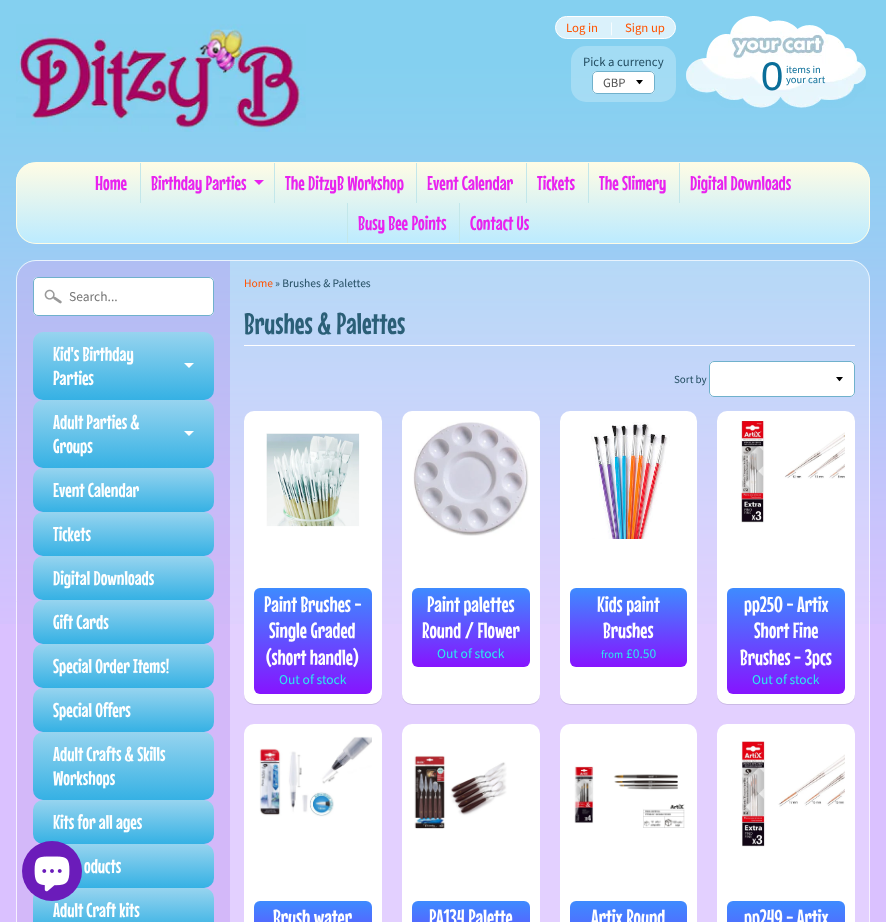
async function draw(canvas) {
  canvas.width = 886;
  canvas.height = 922;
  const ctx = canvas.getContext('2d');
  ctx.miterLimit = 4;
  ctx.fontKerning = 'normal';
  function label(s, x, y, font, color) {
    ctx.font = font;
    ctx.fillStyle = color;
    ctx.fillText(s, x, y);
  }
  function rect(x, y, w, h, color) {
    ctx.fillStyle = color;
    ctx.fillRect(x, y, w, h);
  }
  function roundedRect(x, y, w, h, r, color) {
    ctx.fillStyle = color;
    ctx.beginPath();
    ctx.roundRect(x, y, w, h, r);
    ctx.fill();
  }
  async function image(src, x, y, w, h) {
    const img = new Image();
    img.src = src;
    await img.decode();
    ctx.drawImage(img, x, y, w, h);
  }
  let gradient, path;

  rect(0, 0, 886, 922, '#dac1ff');
  await image('assets/img1.png', 0, 0, 886, 624);
  roundedRect(16, 260, 854, 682, 20, '#ffffff40');
  ctx.beginPath();
  ctx.roundRect(16.5, 260.5, 853, 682, 19.5);
  ctx.strokeStyle = '#ffffffb3';
  ctx.stroke();
  ctx.fillStyle = '#a56ee840';
  path = new Path2D('M36 261H230V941H36C25.5 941 17 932.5 17 922V280C17 269.5 25.5 261 36 261Z');
  ctx.fill(path);
  gradient = ctx.createLinearGradient(124, 800, 124, 844);
  gradient.addColorStop(0, '#97d4ef');
  gradient.addColorStop(1, '#35b1e4');
  ctx.fillStyle = gradient;
  ctx.beginPath();
  ctx.roundRect(33, 800, 181, 44, 10);
  ctx.fill();
  gradient = ctx.createLinearGradient(124, 844, 124, 888);
  gradient.addColorStop(0, '#97d4ef');
  gradient.addColorStop(1, '#35b1e4');
  ctx.fillStyle = gradient;
  ctx.beginPath();
  ctx.roundRect(33, 844, 181, 44, 10);
  ctx.fill();
  gradient = ctx.createLinearGradient(124, 888, 124, 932);
  gradient.addColorStop(0, '#97d4ef');
  gradient.addColorStop(1, '#35b1e4');
  ctx.fillStyle = gradient;
  ctx.beginPath();
  ctx.roundRect(33, 888, 181, 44, 10);
  ctx.fill();
  ctx.fillStyle = '#6b1cba';
  ctx.beginPath();
  ctx.arc(52, 871, 30, 0, 2 * Math.PI);
  ctx.fill();
  await image('assets/img2.png', 34, 856, 36, 36);
  await image('assets/img3.png', 16, 24, 290, 108);
  ctx.fillStyle = '#daf1fb';
  ctx.beginPath();
  ctx.roundRect(555.5, 16.5, 120, 22, 11);
  ctx.fill();
  ctx.strokeStyle = '#fff';
  ctx.stroke();
  label('Log in', 566, 32, '12.75px Source Sans Pro', '#ff5300');
  label('|', 610, 32, '12.75px Source Sans Pro', '#fff');
  label('Sign up', 625, 32, '12.75px Source Sans Pro', '#ff5300');
  roundedRect(571, 46, 105, 56, 15, '#ffffff40');
  label('Pick a currency', 583, 66, '12.75px Source Sans Pro', '#234d61');
  roundedRect(592, 71, 63, 23, 5, '#fff');
  ctx.fillStyle = '#000';
  path = new Path2D('M636 80C640.5 85.5 638.5 85.5 643 80Z');
  ctx.fill(path);
  ctx.beginPath();
  ctx.roundRect(592.5, 71.5, 62, 22, 4.5);
  ctx.strokeStyle = '#70b1cc';
  ctx.stroke();
  label('GBP', 603, 87, '12.75px Source Sans Pro', '#555');
  await image('assets/img4.png', 686, 16, 180, 92);
  label('0', 761, 90, '40px Liberation Sans', '#0a6e99');
  label('items in', 786, 73, '10.5px Source Sans Pro', '#0a6e99');
  label('your cart', 786, 83, '10.5px Source Sans Pro', '#0a6e99');
  ctx.save();
  ctx.beginPath();
  ctx.roundRect(16, 162, 854, 82, 20);
  ctx.clip();
  gradient = ctx.createLinearGradient(443, 163, 443, 243);
  gradient.addColorStop(0, '#fffce5');
  gradient.addColorStop(1, '#bcebff');
  ctx.fillStyle = gradient;
  ctx.fillRect(16, 163, 854, 80);
  ctx.restore();
  ctx.beginPath();
  ctx.roundRect(16.5, 162.5, 853, 81, 19.5);
  ctx.strokeStyle = '#fffce5';
  ctx.stroke();
  label('Home', 95, 190, '20px Mouse Memoirs', '#e922ef');
  rect(140, 163, 1, 40, '#c3e7ea');
  label('Birthday Parties', 151, 190, '20px Mouse Memoirs', '#e922ef');
  path = new Path2D('M254 180H264L259 185Z');
  ctx.fill(path);
  rect(274, 163, 1, 40, '#c3e7ea');
  label('The DitzyB Workshop', 285, 190, '20px Mouse Memoirs', '#e922ef');
  rect(416, 163, 1, 40, '#c3e7ea');
  label('Event Calendar', 427, 190, '20px Mouse Memoirs', '#e922ef');
  rect(526, 163, 1, 40, '#c3e7ea');
  label('Tickets', 537, 190, '20px Mouse Memoirs', '#e922ef');
  rect(588, 163, 1, 40, '#c3e7ea');
  label('The Slimery', 599, 190, '20px Mouse Memoirs', '#e922ef');
  rect(679, 163, 1, 40, '#c3e7ea');
  label('Digital Downloads', 690, 190, '20px Mouse Memoirs', '#e922ef');
  rect(347, 203, 1, 40, '#c3e7ea');
  label('Busy Bee Points', 358, 230, '20px Mouse Memoirs', '#e922ef');
  rect(459, 203, 1, 40, '#c3e7ea');
  label('Contact Us', 470, 230, '20px Mouse Memoirs', '#e922ef');
  roundedRect(33, 277, 181, 39, 5, '#fff');
  await image('assets/img5.png', 44, 289, 18, 15);
  ctx.beginPath();
  ctx.roundRect(33.5, 277.5, 180, 38, 4.5);
  ctx.strokeStyle = '#70b1cc';
  ctx.stroke();
  label('Search...', 69, 301, '13.5px Source Sans Pro', '#757575');
  gradient = ctx.createLinearGradient(124, 332, 124, 400);
  gradient.addColorStop(0, '#97d4ef');
  gradient.addColorStop(1, '#35b1e4');
  ctx.fillStyle = gradient;
  ctx.beginPath();
  ctx.roundRect(33, 332, 181, 68, 10);
  ctx.fill();
  label('Kid\'s Birthday', 53, 361, '20px Mouse Memoirs', '#fff');
  path = new Path2D('M184 363H194L189 368Z');
  ctx.fill(path);
  label('Parties', 53, 385, '20px Mouse Memoirs', '#fff');
  gradient = ctx.createLinearGradient(124, 400, 124, 468);
  gradient.addColorStop(0, '#97d4ef');
  gradient.addColorStop(1, '#35b1e4');
  ctx.fillStyle = gradient;
  ctx.beginPath();
  ctx.roundRect(33, 400, 181, 68, 10);
  ctx.fill();
  label('Adult Parties &', 53, 429, '20px Mouse Memoirs', '#fff');
  path = new Path2D('M184 431H194L189 436Z');
  ctx.fill(path);
  label('Groups', 53, 453, '20px Mouse Memoirs', '#fff');
  gradient = ctx.createLinearGradient(124, 468, 124, 512);
  gradient.addColorStop(0, '#97d4ef');
  gradient.addColorStop(1, '#35b1e4');
  ctx.fillStyle = gradient;
  ctx.beginPath();
  ctx.roundRect(33, 468, 181, 44, 10);
  ctx.fill();
  label('Event Calendar', 53, 497, '20px Mouse Memoirs', '#fff');
  gradient = ctx.createLinearGradient(124, 512, 124, 556);
  gradient.addColorStop(0, '#97d4ef');
  gradient.addColorStop(1, '#35b1e4');
  ctx.fillStyle = gradient;
  ctx.beginPath();
  ctx.roundRect(33, 512, 181, 44, 10);
  ctx.fill();
  label('Tickets', 53, 541, '20px Mouse Memoirs', '#fff');
  gradient = ctx.createLinearGradient(124, 556, 124, 600);
  gradient.addColorStop(0, '#97d4ef');
  gradient.addColorStop(1, '#35b1e4');
  ctx.fillStyle = gradient;
  ctx.beginPath();
  ctx.roundRect(33, 556, 181, 44, 10);
  ctx.fill();
  label('Digital Downloads', 53, 585, '20px Mouse Memoirs', '#fff');
  gradient = ctx.createLinearGradient(124, 600, 124, 644);
  gradient.addColorStop(0, '#97d4ef');
  gradient.addColorStop(1, '#35b1e4');
  ctx.fillStyle = gradient;
  ctx.beginPath();
  ctx.roundRect(33, 600, 181, 44, 10);
  ctx.fill();
  label('Gift Cards', 53, 629, '20px Mouse Memoirs', '#fff');
  gradient = ctx.createLinearGradient(124, 644, 124, 688);
  gradient.addColorStop(0, '#97d4ef');
  gradient.addColorStop(1, '#35b1e4');
  ctx.fillStyle = gradient;
  ctx.beginPath();
  ctx.roundRect(33, 644, 181, 44, 10);
  ctx.fill();
  label('Special Order Items!', 53, 673, '20px Mouse Memoirs', '#fff');
  gradient = ctx.createLinearGradient(124, 688, 124, 732);
  gradient.addColorStop(0, '#97d4ef');
  gradient.addColorStop(1, '#35b1e4');
  ctx.fillStyle = gradient;
  ctx.beginPath();
  ctx.roundRect(33, 688, 181, 44, 10);
  ctx.fill();
  label('Special Offers', 53, 717, '20px Mouse Memoirs', '#fff');
  gradient = ctx.createLinearGradient(124, 732, 124, 800);
  gradient.addColorStop(0, '#97d4ef');
  gradient.addColorStop(1, '#35b1e4');
  ctx.fillStyle = gradient;
  ctx.beginPath();
  ctx.roundRect(33, 732, 181, 68, 10);
  ctx.fill();
  label('Adult Crafts & Skills', 53, 761, '20px Mouse Memoirs', '#fff');
  label('Workshops', 53, 785, '20px Mouse Memoirs', '#fff');
  label('Kits for all ages', 53, 829, '20px Mouse Memoirs', '#fff');
  label('oducts', 84, 873, '20px Mouse Memoirs', '#fff');
  label('Adult Craft kits', 53, 917, '20px Mouse Memoirs', '#fff');
  label('Home', 244, 287, '11.5px Source Sans Pro', '#ff5300');
  label('» Brushes & Palettes', 275, 287, '11.5px Source Sans Pro', '#234d61');
  rect(244, 345, 611, 1, '#fff');
  label('Brushes & Palettes', 244, 334, '30px Mouse Memoirs', '#2b5f77');
  label('Sort by', 674, 383, '11px Source Sans Pro', '#234d61');
  roundedRect(709, 361, 146, 36, 5, '#fff');
  ctx.fillStyle = '#000';
  path = new Path2D('M836 377C840.5 382.5 838.5 382.5 843 377Z');
  ctx.fill(path);
  ctx.beginPath();
  ctx.roundRect(709.5, 361.5, 145, 35, 4.5);
  ctx.stroke();
  ctx.fillStyle = '#0000001a';
  ctx.filter = 'blur(0.5px)';
  ctx.beginPath();
  ctx.roundRect(244, 412, 138, 293, 10);
  ctx.fill();
  ctx.filter = 'none';
  roundedRect(244, 411, 138, 293, 10, '#fff');
  await image('assets/img6.png', 266, 433, 94, 94);
  gradient = ctx.createLinearGradient(313, 588, 313, 694);
  gradient.addColorStop(0, '#3e8bff');
  gradient.addColorStop(1, '#8614ff');
  ctx.fillStyle = gradient;
  ctx.beginPath();
  ctx.roundRect(254, 588, 118, 106, 6);
  ctx.fill();
  label('Paint Brushes -', 264, 612, '22px Mouse Memoirs', '#fff');
  label('Single Graded', 269, 638, '22px Mouse Memoirs', '#fff');
  label('(short handle)', 266, 665, '22px Mouse Memoirs', '#fff');
  label('Out of stock', 279, 684, '13.5px Source Sans Pro', '#2de8ef');
  ctx.fillStyle = '#0000001a';
  ctx.filter = 'blur(0.5px)';
  ctx.beginPath();
  ctx.roundRect(402, 412, 138, 293, 10);
  ctx.fill();
  ctx.filter = 'none';
  roundedRect(402, 411, 138, 293, 10, '#fff');
  await image('assets/img7.png', 413, 422, 116, 114);
  gradient = ctx.createLinearGradient(471, 588, 471, 667);
  gradient.addColorStop(0, '#3e8bff');
  gradient.addColorStop(1, '#8614ff');
  ctx.fillStyle = gradient;
  ctx.beginPath();
  ctx.roundRect(412, 588, 118, 79, 6);
  ctx.fill();
  label('Paint palettes', 427, 612, '22px Mouse Memoirs', '#fff');
  label('Round / Flower', 422, 638, '22px Mouse Memoirs', '#fff');
  label('Out of stock', 437, 658, '13.5px Source Sans Pro', '#2de8ef');
  ctx.fillStyle = '#0000001a';
  ctx.filter = 'blur(0.5px)';
  ctx.beginPath();
  ctx.roundRect(560, 412, 137, 293, 10);
  ctx.fill();
  ctx.filter = 'none';
  roundedRect(560, 411, 137, 293, 10, '#fff');
  await image('assets/img8.png', 591, 422, 79, 117);
  gradient = ctx.createLinearGradient(629, 588, 629, 667);
  gradient.addColorStop(0, '#3e8bff');
  gradient.addColorStop(1, '#8614ff');
  ctx.fillStyle = gradient;
  ctx.beginPath();
  ctx.roundRect(570, 588, 117, 79, 6);
  ctx.fill();
  label('Kids paint', 597, 612, '22px Mouse Memoirs', '#fff');
  label('Brushes', 603, 638, '22px Mouse Memoirs', '#fff');
  label('from', 601, 658, '11px Source Sans Pro', '#2de8ef');
  label('£0.50', 626, 658, '13.5px Source Sans Pro', '#2de8ef');
  ctx.fillStyle = '#0000001a';
  ctx.filter = 'blur(0.5px)';
  ctx.beginPath();
  ctx.roundRect(717, 412, 138, 293, 10);
  ctx.fill();
  ctx.filter = 'none';
  roundedRect(717, 411, 138, 293, 10, '#fff');
  await image('assets/img9.png', 741, 421, 104, 102);
  gradient = ctx.createLinearGradient(786, 588, 786, 694);
  gradient.addColorStop(0, '#3e8bff');
  gradient.addColorStop(1, '#8614ff');
  ctx.fillStyle = gradient;
  ctx.beginPath();
  ctx.roundRect(727, 588, 118, 106, 6);
  ctx.fill();
  label('pp250 - Artix', 744, 612, '22px Mouse Memoirs', '#fff');
  label('Short Fine', 754, 638, '22px Mouse Memoirs', '#fff');
  label('Brushes - 3pcs', 740, 665, '22px Mouse Memoirs', '#fff');
  label('Out of stock', 752, 684, '13.5px Source Sans Pro', '#2de8ef');
  roundedRect(244, 724, 138, 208, 10, '#fff');
  await image('assets/img10.png', 259, 736, 113, 81);
  gradient = ctx.createLinearGradient(313, 901, 313, 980);
  gradient.addColorStop(0, '#3e8bff');
  gradient.addColorStop(1, '#8614ff');
  ctx.fillStyle = gradient;
  ctx.beginPath();
  ctx.roundRect(254, 901, 118, 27, 6);
  ctx.fill();
  label('Brush water', 273, 925, '22px Mouse Memoirs', '#fff');
  roundedRect(402, 724, 138, 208, 10, '#fff');
  await image('assets/img11.png', 414, 755, 93, 74);
  gradient = ctx.createLinearGradient(471, 901, 471, 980);
  gradient.addColorStop(0, '#3e8bff');
  gradient.addColorStop(1, '#8614ff');
  ctx.fillStyle = gradient;
  ctx.beginPath();
  ctx.roundRect(412, 901, 118, 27, 6);
  ctx.fill();
  label('PA134 Palette', 429, 925, '22px Mouse Memoirs', '#fff');
  roundedRect(560, 724, 137, 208, 10, '#fff');
  await image('assets/img12.png', 574, 766, 111, 62);
  gradient = ctx.createLinearGradient(629, 901, 629, 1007);
  gradient.addColorStop(0, '#3e8bff');
  gradient.addColorStop(1, '#8614ff');
  ctx.fillStyle = gradient;
  ctx.beginPath();
  ctx.roundRect(570, 901, 117, 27, 6);
  ctx.fill();
  label('Artix Round', 591, 925, '22px Mouse Memoirs', '#fff');
  roundedRect(717, 724, 138, 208, 10, '#fff');
  await image('assets/img13.png', 741, 741, 104, 106);
  gradient = ctx.createLinearGradient(786, 901, 786, 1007);
  gradient.addColorStop(0, '#3e8bff');
  gradient.addColorStop(1, '#8614ff');
  ctx.fillStyle = gradient;
  ctx.beginPath();
  ctx.roundRect(727, 901, 118, 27, 6);
  ctx.fill();
  label('pp249 - Artix', 744, 925, '22px Mouse Memoirs', '#fff');
}

draw(document.querySelector('canvas'));
